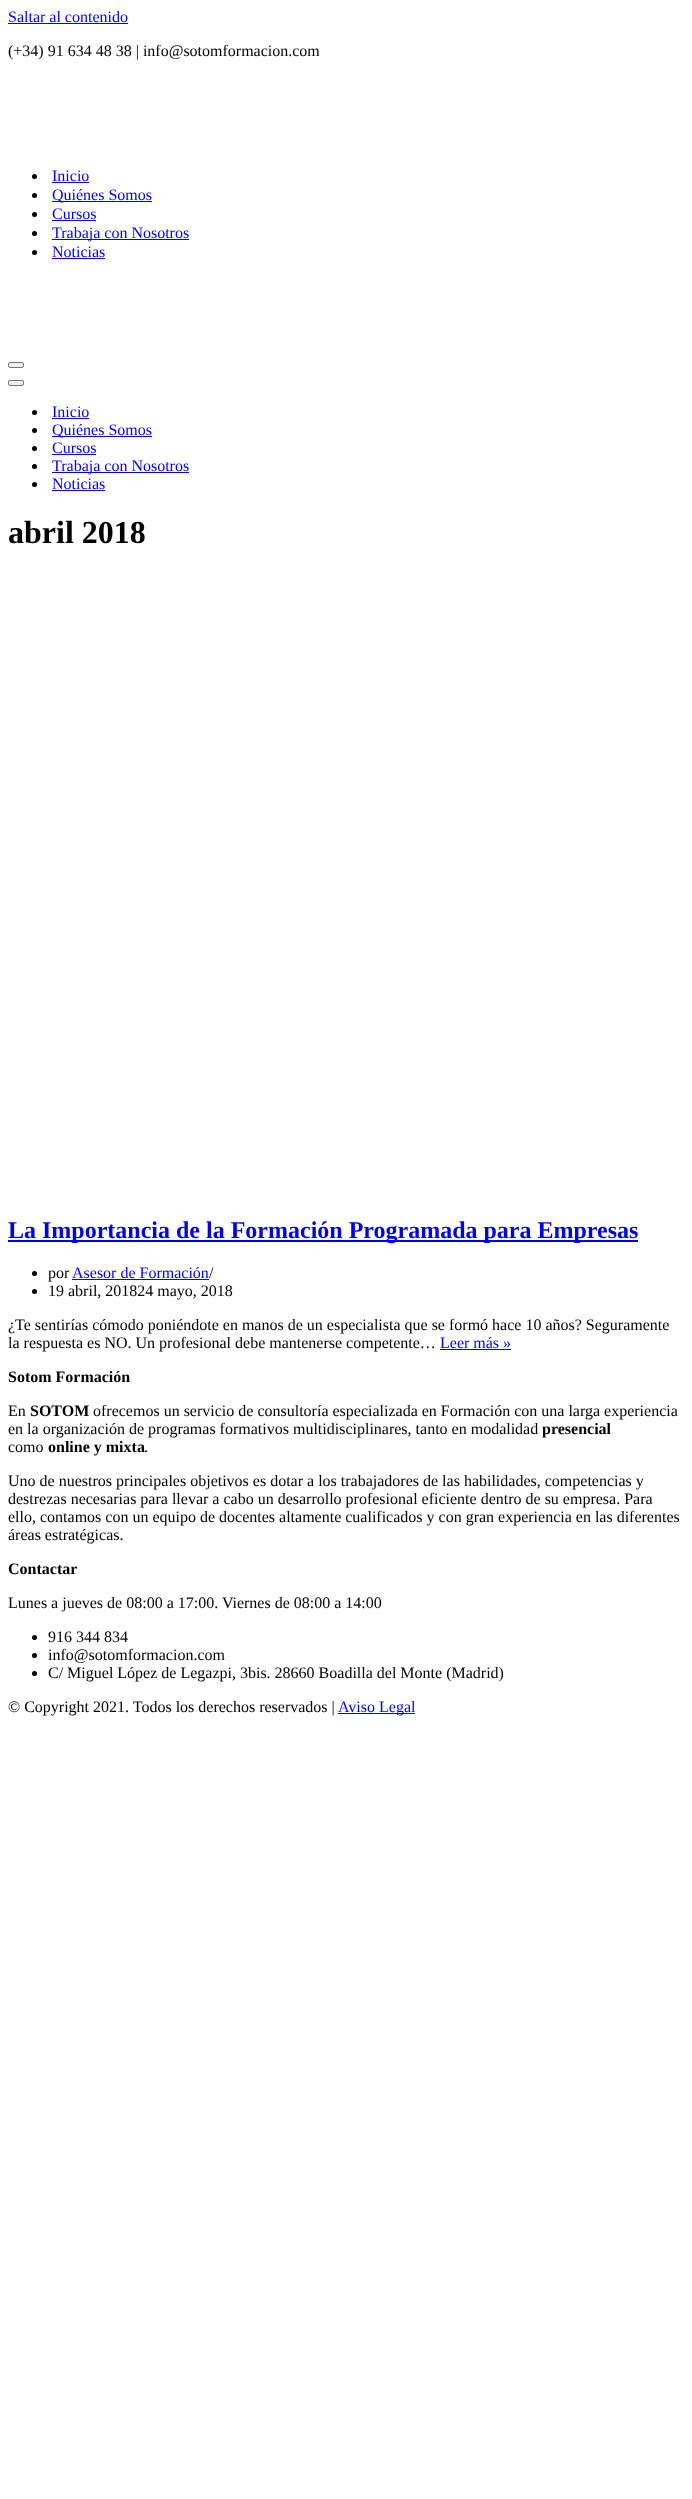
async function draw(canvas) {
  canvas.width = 692;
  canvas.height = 2499;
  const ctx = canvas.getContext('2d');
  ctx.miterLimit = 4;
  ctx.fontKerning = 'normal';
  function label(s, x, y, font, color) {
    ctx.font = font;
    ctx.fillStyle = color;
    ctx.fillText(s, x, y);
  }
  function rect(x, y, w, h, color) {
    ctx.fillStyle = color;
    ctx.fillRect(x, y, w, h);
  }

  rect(0, 0, 692, 2499, '#fff');
  label('Saltar al contenido', 8, 22, '16px Liberation Serif', '#00e');
  rect(8, 23, 120, 1, '#00e');
  label('(+34) 91 634 48 38 | info@sotomformacion.com', 8, 56, '16px Liberation Serif', '#000');
  ctx.beginPath();
  ctx.arc(34.5, 176.5, 2.5, 0, 2 * Math.PI);
  ctx.fill();
  label('Inicio', 52, 181, '16px Liberation Serif', '#00e');
  rect(52, 182, 37, 1, '#00e');
  ctx.fillStyle = '#000';
  ctx.beginPath();
  ctx.arc(34.5, 195.5, 2.5, 0, 2 * Math.PI);
  ctx.fill();
  rect(52, 201, 100, 1, '#00e');
  label('Quiénes Somos', 52, 200, '16px Liberation Serif', '#00e');
  ctx.fillStyle = '#000';
  ctx.beginPath();
  ctx.arc(34.5, 214.5, 2.5, 0, 2 * Math.PI);
  ctx.fill();
  label('Cursos', 52, 219, '16px Liberation Serif', '#00e');
  rect(52, 220, 44, 1, '#00e');
  ctx.fillStyle = '#000';
  ctx.beginPath();
  ctx.arc(34.5, 233.5, 2.5, 0, 2 * Math.PI);
  ctx.fill();
  rect(52, 239, 137, 1, '#00e');
  label('Trabaja con Nosotros', 52, 238, '16px Liberation Serif', '#00e');
  ctx.fillStyle = '#000';
  ctx.beginPath();
  ctx.arc(34.5, 252.5, 2.5, 0, 2 * Math.PI);
  ctx.fill();
  label('Noticias', 52, 257, '16px Liberation Serif', '#00e');
  rect(52, 258, 53, 1, '#00e');
  ctx.fillStyle = '#efefef';
  ctx.beginPath();
  ctx.roundRect(8.5, 362.5, 15, 5, 1.5);
  ctx.fill();
  ctx.strokeStyle = '#767676';
  ctx.stroke();
  ctx.beginPath();
  ctx.roundRect(8.5, 380.5, 15, 5, 1.5);
  ctx.fill();
  ctx.stroke();
  ctx.fillStyle = '#000';
  ctx.beginPath();
  ctx.arc(34.5, 412.5, 2.5, 0, 2 * Math.PI);
  ctx.fill();
  label('Inicio', 52, 417, '16px Liberation Serif', '#00e');
  rect(52, 418, 37, 1, '#00e');
  ctx.fillStyle = '#000';
  ctx.beginPath();
  ctx.arc(34.5, 430.5, 2.5, 0, 2 * Math.PI);
  ctx.fill();
  rect(52, 436, 100, 1, '#00e');
  label('Quiénes Somos', 52, 435, '16px Liberation Serif', '#00e');
  ctx.fillStyle = '#000';
  ctx.beginPath();
  ctx.arc(34.5, 448.5, 2.5, 0, 2 * Math.PI);
  ctx.fill();
  label('Cursos', 52, 453, '16px Liberation Serif', '#00e');
  rect(52, 454, 44, 1, '#00e');
  ctx.fillStyle = '#000';
  ctx.beginPath();
  ctx.arc(34.5, 466.5, 2.5, 0, 2 * Math.PI);
  ctx.fill();
  rect(52, 472, 137, 1, '#00e');
  label('Trabaja con Nosotros', 52, 471, '16px Liberation Serif', '#00e');
  ctx.fillStyle = '#000';
  ctx.beginPath();
  ctx.arc(34.5, 484.5, 2.5, 0, 2 * Math.PI);
  ctx.fill();
  label('Noticias', 52, 489, '16px Liberation Serif', '#00e');
  rect(52, 490, 53, 1, '#00e');
  label('abril 2018', 8, 543, 'bold 32px Liberation Serif', '#000');
  rect(8, 1240, 630, 2, '#00e');
  label('La Importancia de la Formación Programada para Empresas', 8, 1238, 'bold 24px Liberation Serif', '#00e');
  ctx.fillStyle = '#000';
  ctx.beginPath();
  ctx.arc(34.5, 1273.5, 2.5, 0, 2 * Math.PI);
  ctx.fill();
  label('por', 48, 1278, '16px Liberation Serif', '#000');
  rect(72, 1279, 137, 1, '#00e');
  label('Asesor de Formación', 72, 1278, '16px Liberation Serif', '#00e');
  label('/', 209, 1278, '16px Liberation Serif', '#000');
  ctx.beginPath();
  ctx.arc(34.5, 1291.5, 2.5, 0, 2 * Math.PI);
  ctx.fill();
  label('19 abril, 201824 mayo, 2018', 48, 1296, '16px Liberation Serif', '#000');
  label('¿Te sentirías cómodo poniéndote en manos de un especialista que se formó hace 10 años? Seguramente', 8, 1330, '16px Liberation Serif', '#000');
  label('la respuesta es NO. Un profesional debe mantenerse competente…', 8, 1348, '16px Liberation Serif', '#000');
  label('Leer más »', 440, 1348, '16px Liberation Serif', '#00e');
  rect(440, 1349, 71, 1, '#00e');
  label('Sotom Formación', 8, 1382, 'bold 16px Liberation Serif', '#000');
  label('En', 8, 1416, '16px Liberation Serif', '#000');
  label('SOTOM', 30, 1416, 'bold 16px Liberation Serif', '#000');
  label('ofrecemos un servicio de consultoría especializada en Formación con una larga experiencia', 93, 1416, '16px Liberation Serif', '#000');
  label('en la organización de programas formativos multidisciplinares, tanto en modalidad', 8, 1434, '16px Liberation Serif', '#000');
  label('presencial', 542, 1434, 'bold 16px Liberation Serif', '#000');
  label('como', 8, 1452, '16px Liberation Serif', '#000');
  label('online y mixta', 48, 1452, 'bold 16px Liberation Serif', '#000');
  label('.', 144, 1452, '16px Liberation Serif', '#000');
  label('Uno de nuestros principales objetivos es dotar a los trabajadores de las habilidades, competencias y', 8, 1486, '16px Liberation Serif', '#000');
  label('destrezas necesarias para llevar a cabo un desarrollo profesional eficiente dentro de su empresa. Para', 8, 1504, '16px Liberation Serif', '#000');
  label('ello, contamos con un equipo de docentes altamente cualificados y con gran experiencia en las diferentes', 8, 1522, '16px Liberation Serif', '#000');
  label('áreas estratégicas.', 8, 1540, '16px Liberation Serif', '#000');
  label('Contactar', 8, 1574, 'bold 16px Liberation Serif', '#000');
  label('Lunes a jueves de 08:00 a 17:00. Viernes de 08:00 a 14:00', 8, 1608, '16px Liberation Serif', '#000');
  ctx.beginPath();
  ctx.arc(34.5, 1637.5, 2.5, 0, 2 * Math.PI);
  ctx.fill();
  label('916 344 834', 48, 1642, '16px Liberation Serif', '#000');
  ctx.beginPath();
  ctx.arc(34.5, 1655.5, 2.5, 0, 2 * Math.PI);
  ctx.fill();
  label('info@sotomformacion.com', 48, 1660, '16px Liberation Serif', '#000');
  ctx.beginPath();
  ctx.arc(34.5, 1673.5, 2.5, 0, 2 * Math.PI);
  ctx.fill();
  label('C/ Miguel López de Legazpi, 3bis. 28660 Boadilla del Monte (Madrid)', 48, 1678, '16px Liberation Serif', '#000');
  label('© Copyright 2021. Todos los derechos reservados |', 8, 1712, '16px Liberation Serif', '#000');
  rect(338, 1713, 77, 1, '#00e');
  label('Aviso Legal', 338, 1712, '16px Liberation Serif', '#00e');
}

draw(document.querySelector('canvas'));
